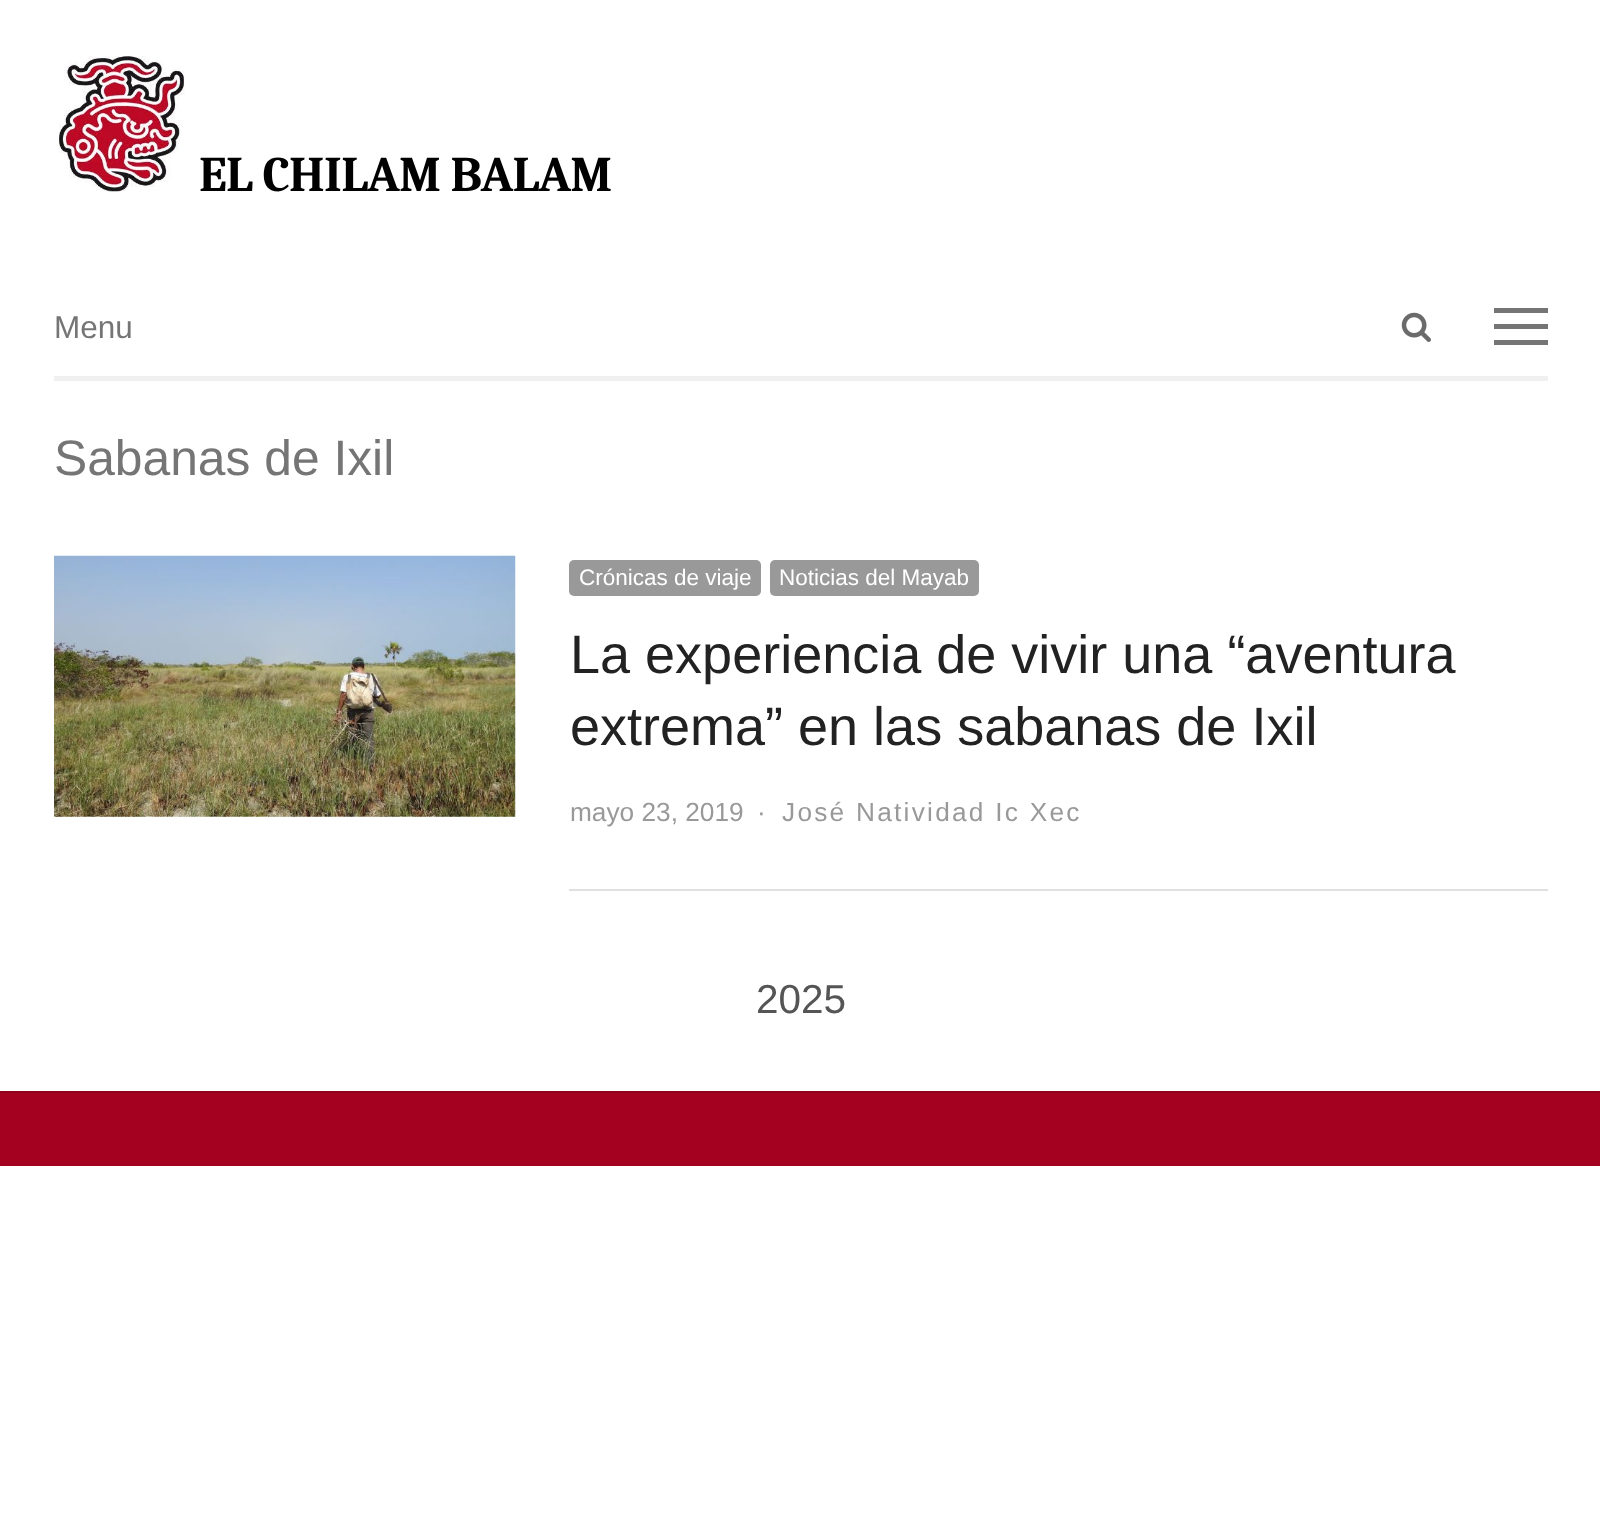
async function draw(canvas) {
  canvas.width = 1600;
  canvas.height = 1516;
  const ctx = canvas.getContext('2d');
  ctx.miterLimit = 4;
  ctx.fontKerning = 'normal';
  function label(s, x, y, font, color) {
    ctx.font = font;
    ctx.fillStyle = color;
    ctx.fillText(s, x, y);
  }
  function rect(x, y, w, h, color) {
    ctx.fillStyle = color;
    ctx.fillRect(x, y, w, h);
  }
  function roundedRect(x, y, w, h, r, color) {
    ctx.fillStyle = color;
    ctx.beginPath();
    ctx.roundRect(x, y, w, h, r);
    ctx.fill();
  }
  async function image(src, x, y, w, h) {
    const img = new Image();
    img.src = src;
    await img.decode();
    ctx.drawImage(img, x, y, w, h);
  }

  rect(0, 0, 1600, 1516, '#fff');
  await image('assets/img1.png', 59, 56, 126, 136);
  ctx.letterSpacing = '-0.75px';
  label('EL CHILAM BALAM', 199, 191, 'bold 49.75px Caladea', '#000');
  rect(54, 376, 1494, 5, '#f0f0f0');
  ctx.letterSpacing = '0px';
  label('Menu', 54, 338, '31.5px Liberation Sans', '#757575');
  rect(1494, 308, 54, 5, '#757575');
  rect(1494, 324, 54, 5, '#757575');
  rect(1494, 340, 54, 5, '#757575');
  await image('assets/img2.png', 1401, 312, 30, 30);
  label('Sabanas de Ixil', 54, 475, '49.75px Liberation Sans', '#757575');
  await image('assets/img3.png', 54, 555, 462, 262);
  roundedRect(569, 560, 192, 36, 5, '#999');
  label('Crónicas de viaje', 579, 585, '22.5px Liberation Sans', '#fff');
  roundedRect(770, 560, 209, 36, 5, '#999');
  label('Noticias del Mayab', 779, 585, '22.5px Liberation Sans', '#fff');
  label('La experiencia de vivir una “aventura', 570, 673, '54px Liberation Sans', '#222');
  label('extrema” en las sabanas de Ixil', 570, 745, '54px Liberation Sans', '#222');
  label('mayo 23, 2019', 570, 821, '26.25px Liberation Sans', '#999');
  ctx.letterSpacing = '2.25px';
  label('·', 757, 821, '26.25px Liberation Sans', '#999');
  label('José Natividad Ic Xec', 782, 821, '26.25px Liberation Sans', '#999');
  rect(569, 889, 979, 2, '#e0e0e0');
  ctx.letterSpacing = '0px';
  label('2025', 756, 1013, '40.5px Liberation Sans', '#555');
  rect(0, 1093, 1600, 73, '#a4001f');
  rect(0, 1091, 1600, 2, '#90001b');
}

draw(document.querySelector('canvas'));
